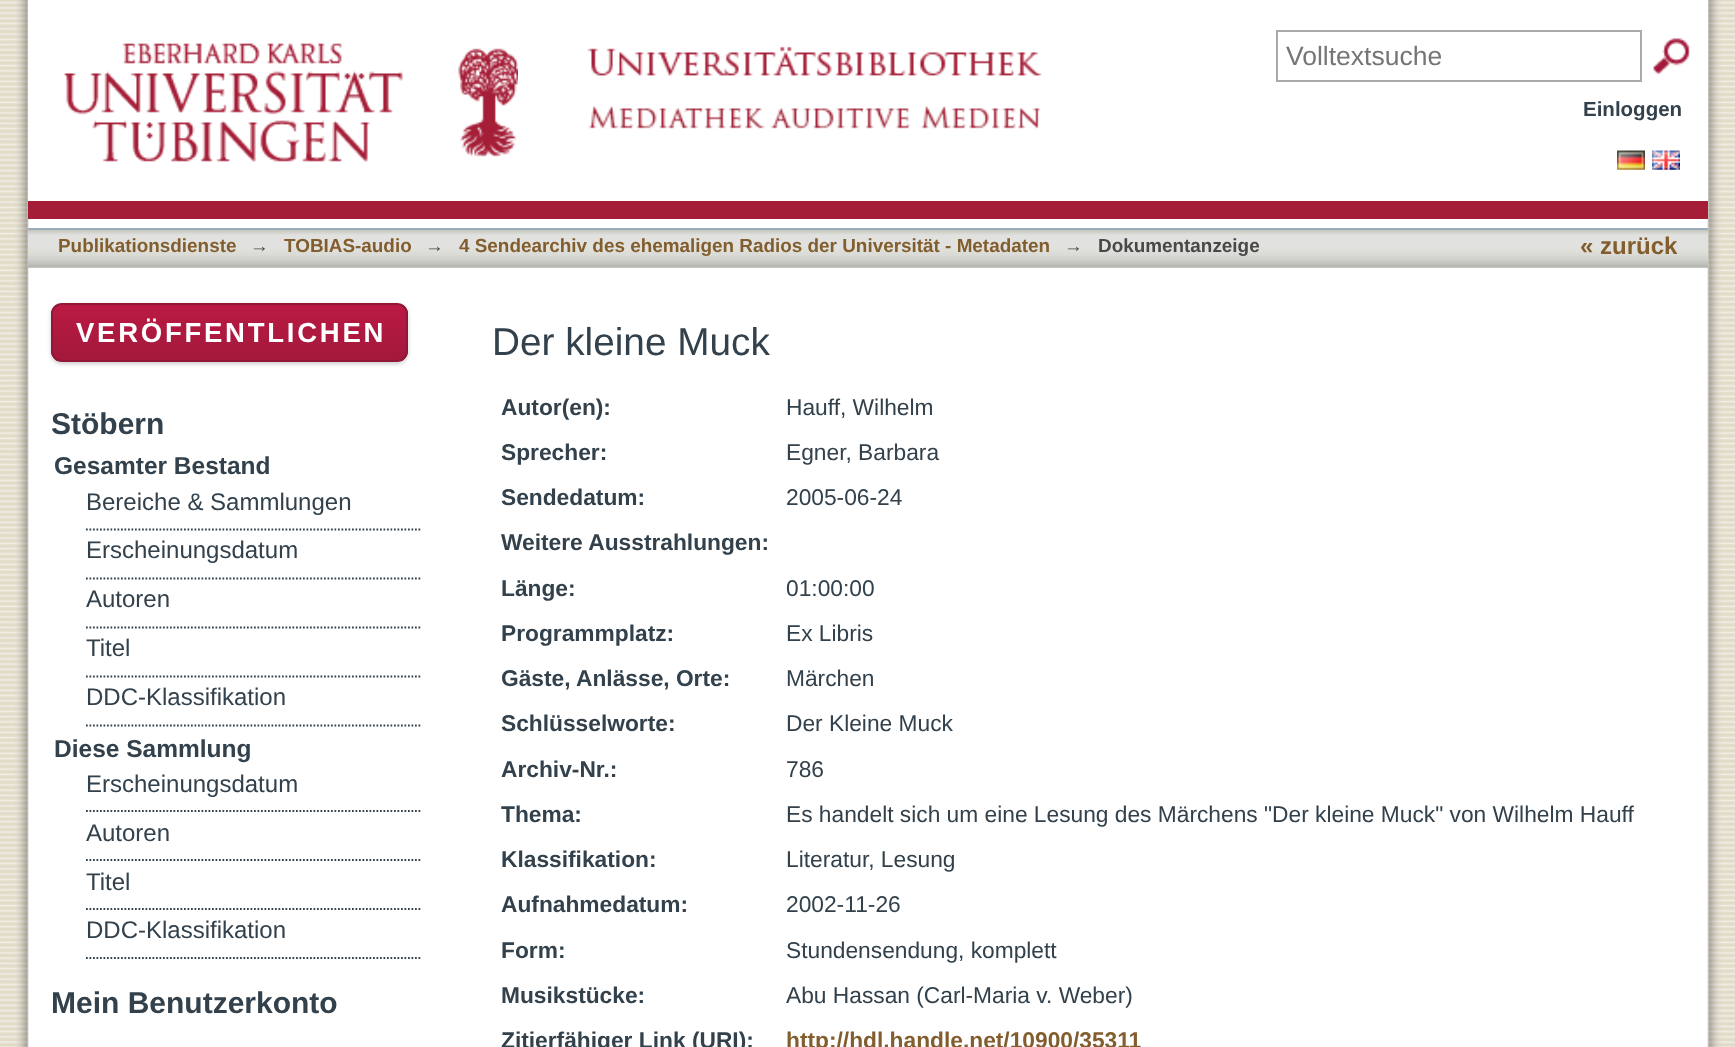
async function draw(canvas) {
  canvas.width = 1735;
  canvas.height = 1047;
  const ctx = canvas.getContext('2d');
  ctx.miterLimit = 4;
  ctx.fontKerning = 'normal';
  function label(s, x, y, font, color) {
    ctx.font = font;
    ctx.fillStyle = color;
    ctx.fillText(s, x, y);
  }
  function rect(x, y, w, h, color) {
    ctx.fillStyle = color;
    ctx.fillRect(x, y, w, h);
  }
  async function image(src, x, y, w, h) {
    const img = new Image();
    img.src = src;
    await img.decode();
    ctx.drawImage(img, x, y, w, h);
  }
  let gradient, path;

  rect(0, 0, 1735, 1047, '#fff');
  await image('assets/img1.png', 0, 0, 1735, 1047);
  await image('assets/img2.png', 15, 0, 1706, 1047);
  rect(28, 0, 1680, 201, '#fff');
  rect(28, 201, 1680, 18, '#a51e37');
  await image('assets/img3.png', 64, 43, 454, 119);
  await image('assets/img4.png', 587, 46, 455, 83);
  ctx.strokeStyle = '#aaa';
  ctx.lineWidth = 2;
  ctx.strokeRect(1277, 31, 364, 50);
  label('Volltextsuche', 1286, 65, '26.5px Liberation Sans', '#757575');
  await image('assets/img5.png', 1653, 38, 38, 36);
  label('Einloggen', 1583, 116, 'bold 20.5px Liberation Sans', '#32414b');
  await image('assets/img6.png', 28, 230, 1680, 38);
  rect(28, 228, 1680, 2, '#9cacba');
  await image('assets/img7.png', 1617, 150, 28, 20);
  await image('assets/img8.png', 1652, 150, 28, 20);
  label('Publikationsdienste', 58, 252, 'bold 18.9px Liberation Sans', '#825d2d');
  label('→', 250, 252, 'bold 18.9px Liberation Sans', '#484848');
  label('TOBIAS-audio', 284, 252, 'bold 18.9px Liberation Sans', '#825d2d');
  label('→', 425, 252, 'bold 18.9px Liberation Sans', '#484848');
  label('4 Sendearchiv des ehemaligen Radios der Universität - Metadaten', 459, 252, 'bold 18.9px Liberation Sans', '#825d2d');
  label('→', 1064, 252, 'bold 18.9px Liberation Sans', '#484848');
  label('Dokumentanzeige', 1098, 252, 'bold 18.9px Liberation Sans', '#484848');
  label('« zurück', 1580, 254, 'bold 24px Liberation Sans', '#825d2d');
  ctx.fillStyle = '#00000033';
  ctx.filter = 'blur(2px)';
  ctx.beginPath();
  ctx.roundRect(51, 305, 357, 59, 11);
  ctx.fill();
  ctx.filter = 'none';
  ctx.save();
  ctx.beginPath();
  ctx.roundRect(51, 303, 357, 59, 11);
  ctx.clip();
  gradient = ctx.createLinearGradient(229, 305, 229, 361);
  gradient.addColorStop(0, '#bb1a43');
  gradient.addColorStop(1, '#a2183b');
  ctx.fillStyle = gradient;
  ctx.fillRect(51, 305, 357, 56);
  ctx.restore();
  ctx.beginPath();
  ctx.roundRect(52, 304, 355, 57, 10);
  ctx.strokeStyle = '#901735';
  ctx.stroke();
  ctx.letterSpacing = '2.75px';
  label('VERÖFFENTLICHEN', 76, 342, 'bold 27.5px Liberation Sans', '#fff');
  ctx.letterSpacing = '0px';
  label('Stöbern', 51, 434, 'bold 30px Liberation Sans', '#32414b');
  label('Gesamter Bestand', 54, 474, 'bold 24.5px Liberation Sans', '#32414b');
  path = new Path2D('M86 529.5H422');
  ctx.strokeStyle = '#32414b';
  ctx.lineWidth = 1.8;
  ctx.setLineDash([1.75, 1.75]);
  ctx.stroke(path);
  label('Bereiche & Sammlungen', 86, 510, '24px Liberation Sans', '#32414b');
  path = new Path2D('M86 578.5H422');
  ctx.stroke(path);
  label('Erscheinungsdatum', 86, 558, '24px Liberation Sans', '#32414b');
  path = new Path2D('M86 627.5H422');
  ctx.stroke(path);
  label('Autoren', 86, 607, '24px Liberation Sans', '#32414b');
  path = new Path2D('M86 676.5H422');
  ctx.stroke(path);
  label('Titel', 86, 656, '24px Liberation Sans', '#32414b');
  path = new Path2D('M86 725.5H422');
  ctx.stroke(path);
  label('DDC-Klassifikation', 86, 705, '24px Liberation Sans', '#32414b');
  label('Diese Sammlung', 54, 757, 'bold 24.5px Liberation Sans', '#32414b');
  path = new Path2D('M86 811H422');
  ctx.stroke(path);
  label('Erscheinungsdatum', 86, 792, '24px Liberation Sans', '#32414b');
  path = new Path2D('M86 860H422');
  ctx.stroke(path);
  label('Autoren', 86, 841, '24px Liberation Sans', '#32414b');
  path = new Path2D('M86 909H422');
  ctx.stroke(path);
  label('Titel', 86, 890, '24px Liberation Sans', '#32414b');
  path = new Path2D('M86 958H422');
  ctx.stroke(path);
  label('DDC-Klassifikation', 86, 938, '24px Liberation Sans', '#32414b');
  label('Mein Benutzerkonto', 51, 1013, 'bold 30px Liberation Sans', '#32414b');
  label('Der kleine Muck', 492, 355, '38.75px Liberation Sans', '#32414b');
  label('Autor(en):', 501, 415, 'bold 22.75px Liberation Sans', '#32414b');
  label('Hauff, Wilhelm', 786, 415, '22.75px Liberation Sans', '#32414b');
  label('Sprecher:', 501, 460, 'bold 22.75px Liberation Sans', '#32414b');
  label('Egner, Barbara', 786, 460, '22.75px Liberation Sans', '#32414b');
  label('Sendedatum:', 501, 505, 'bold 22.75px Liberation Sans', '#32414b');
  label('2005-06-24', 786, 505, '22.75px Liberation Sans', '#32414b');
  label('Weitere Ausstrahlungen:', 501, 550, 'bold 22.75px Liberation Sans', '#32414b');
  label('Länge:', 501, 596, 'bold 22.75px Liberation Sans', '#32414b');
  label('01:00:00', 786, 596, '22.75px Liberation Sans', '#32414b');
  label('Programmplatz:', 501, 641, 'bold 22.75px Liberation Sans', '#32414b');
  label('Ex Libris', 786, 641, '22.75px Liberation Sans', '#32414b');
  label('Gäste, Anlässe, Orte:', 501, 686, 'bold 22.75px Liberation Sans', '#32414b');
  label('Märchen', 786, 686, '22.75px Liberation Sans', '#32414b');
  label('Schlüsselworte:', 501, 731, 'bold 22.75px Liberation Sans', '#32414b');
  label('Der Kleine Muck', 786, 731, '22.75px Liberation Sans', '#32414b');
  label('Archiv-Nr.:', 501, 777, 'bold 22.75px Liberation Sans', '#32414b');
  label('786', 786, 777, '22.75px Liberation Sans', '#32414b');
  label('Thema:', 501, 822, 'bold 22.75px Liberation Sans', '#32414b');
  label('Es handelt sich um eine Lesung des Märchens "Der kleine Muck" von Wilhelm Hauff', 786, 822, '22.75px Liberation Sans', '#32414b');
  label('Klassifikation:', 501, 867, 'bold 22.75px Liberation Sans', '#32414b');
  label('Literatur, Lesung', 786, 867, '22.75px Liberation Sans', '#32414b');
  label('Aufnahmedatum:', 501, 912, 'bold 22.75px Liberation Sans', '#32414b');
  label('2002-11-26', 786, 912, '22.75px Liberation Sans', '#32414b');
  label('Form:', 501, 958, 'bold 22.75px Liberation Sans', '#32414b');
  label('Stundensendung, komplett', 786, 958, '22.75px Liberation Sans', '#32414b');
  label('Musikstücke:', 501, 1003, 'bold 22.75px Liberation Sans', '#32414b');
  label('Abu Hassan (Carl-Maria v. Weber)', 786, 1003, '22.75px Liberation Sans', '#32414b');
  label('Zitierfähiger Link (URI):', 501, 1048, 'bold 22.75px Liberation Sans', '#32414b');
  label('http://hdl.handle.net/10900/35311', 786, 1048, 'bold 22.75px Liberation Sans', '#825d2d');
}

draw(document.querySelector('canvas'));
